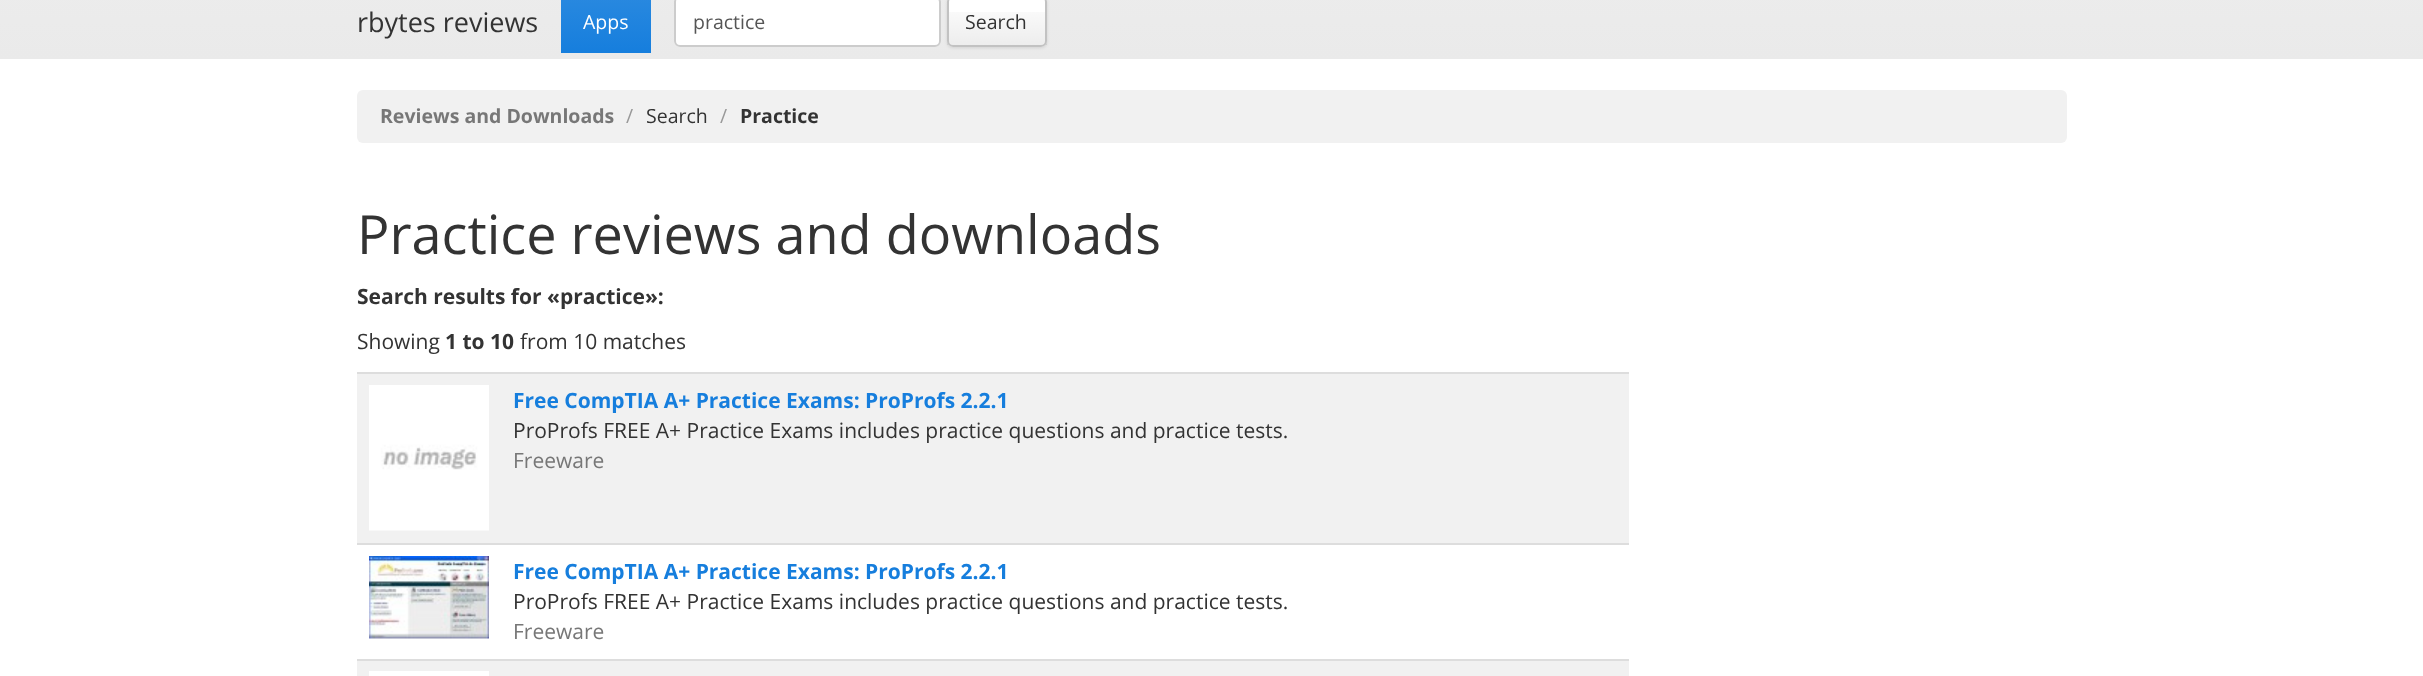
async function draw(canvas) {
  canvas.width = 2423;
  canvas.height = 676;
  const ctx = canvas.getContext('2d');
  ctx.miterLimit = 4;
  ctx.fontKerning = 'normal';
  function label(s, x, y, font, color) {
    ctx.font = font;
    ctx.fillStyle = color;
    ctx.fillText(s, x, y);
  }
  function rect(x, y, w, h, color) {
    ctx.fillStyle = color;
    ctx.fillRect(x, y, w, h);
  }
  function roundedRect(x, y, w, h, r, color) {
    ctx.fillStyle = color;
    ctx.beginPath();
    ctx.roundRect(x, y, w, h, r);
    ctx.fill();
  }
  async function image(src, x, y, w, h) {
    const img = new Image();
    img.src = src;
    await img.decode();
    ctx.drawImage(img, x, y, w, h);
  }
  let gradient, path;

  rect(0, 0, 2423, 676, '#fff');
  gradient = ctx.createLinearGradient(1212, -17, 1212, 59);
  gradient.addColorStop(0, '#ececec');
  gradient.addColorStop(1, '#eaeaea');
  ctx.fillStyle = gradient;
  ctx.fillRect(0, 0, 2423, 59);
  label('rbytes reviews', 357, 32, '27px Open Sans', '#333');
  gradient = ctx.createLinearGradient(606, -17, 606, 53);
  gradient.addColorStop(0, '#2d8be0');
  gradient.addColorStop(1, '#167edd');
  ctx.fillStyle = gradient;
  ctx.fillRect(561, 0, 90, 53);
  label('Apps', 583, 29, '19.5px Open Sans', '#fff');
  roundedRect(674, -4, 267, 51, 6, '#fff');
  ctx.fillStyle = '#ececec';
  path = new Path2D('M680-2H934C937-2 939 1 939 3C939 0 937-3 934-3H680C677-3 675 0 675 3C675 1 677-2 680-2Z');
  ctx.fill(path);
  ctx.beginPath();
  ctx.roundRect(675, -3, 265, 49, 5);
  ctx.strokeStyle = '#ccc';
  ctx.lineWidth = 2;
  ctx.stroke();
  label('practice', 693, 29, '19.5px Open Sans', '#555');
  ctx.fillStyle = '#0000001a';
  ctx.filter = 'blur(1.5px)';
  ctx.beginPath();
  ctx.roundRect(947, -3, 100, 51, 6);
  ctx.fill();
  ctx.filter = 'none';
  roundedRect(947, -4, 100, 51, 6, '#fff');
  gradient = ctx.createLinearGradient(997, -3, 997, 45);
  gradient.addColorStop(0, '#00000000');
  gradient.addColorStop(1, '#00000012');
  ctx.fillStyle = gradient;
  ctx.fillRect(947, 12, 100, 33);
  ctx.beginPath();
  ctx.roundRect(948, -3, 98, 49, 5);
  ctx.strokeStyle = '#c2c2c2';
  ctx.stroke();
  label('Search', 965, 29, '19.5px Open Sans', '#333');
  roundedRect(357, 90, 1710, 53, 6, '#f1f1f1');
  label('Reviews and Downloads', 380, 123, 'bold 19.5px Open Sans', '#777');
  label('/', 626, 123, '19.5px Open Sans', '#999');
  label('Search', 646, 123, '19.5px Open Sans', '#333');
  label('/', 720, 123, '19.5px Open Sans', '#999');
  label('Practice', 740, 123, 'bold 19.5px Open Sans', '#333');
  label('Practice reviews and downloads', 357, 254, '54px Open Sans', '#333');
  label('Search results for «practice»:', 357, 304, 'bold 21px Open Sans', '#333');
  label('Showing', 357, 349, '21px Open Sans', '#333');
  label('1 to 10', 445, 349, 'bold 21px Open Sans', '#333');
  label('from 10 matches', 520, 349, '21px Open Sans', '#333');
  rect(357, 374, 1272, 169, '#f1f1f1');
  await image('assets/img1.png', 369, 385, 120, 146);
  rect(357, 372, 1272, 2, '#ddd');
  label('Free CompTIA A+ Practice Exams: ProProfs 2.2.1', 513, 408, 'bold 21px Open Sans', '#167edd');
  label('ProProfs FREE A+ Practice Exams includes practice questions and practice tests.', 513, 438, '21px Open Sans', '#333');
  label('Freeware', 513, 468, '21px Open Sans', '#777');
  await image('assets/img2.png', 369, 556, 120, 83);
  rect(357, 543, 1272, 2, '#ddd');
  label('Free CompTIA A+ Practice Exams: ProProfs 2.2.1', 513, 579, 'bold 21px Open Sans', '#167edd');
  label('ProProfs FREE A+ Practice Exams includes practice questions and practice tests.', 513, 609, '21px Open Sans', '#333');
  label('Freeware', 513, 639, '21px Open Sans', '#777');
  rect(357, 659, 1272, 2, '#ddd');
  rect(357, 661, 1272, 15, '#f1f1f1');
  rect(369, 671, 120, 5, '#fff');
}

draw(document.querySelector('canvas'));
